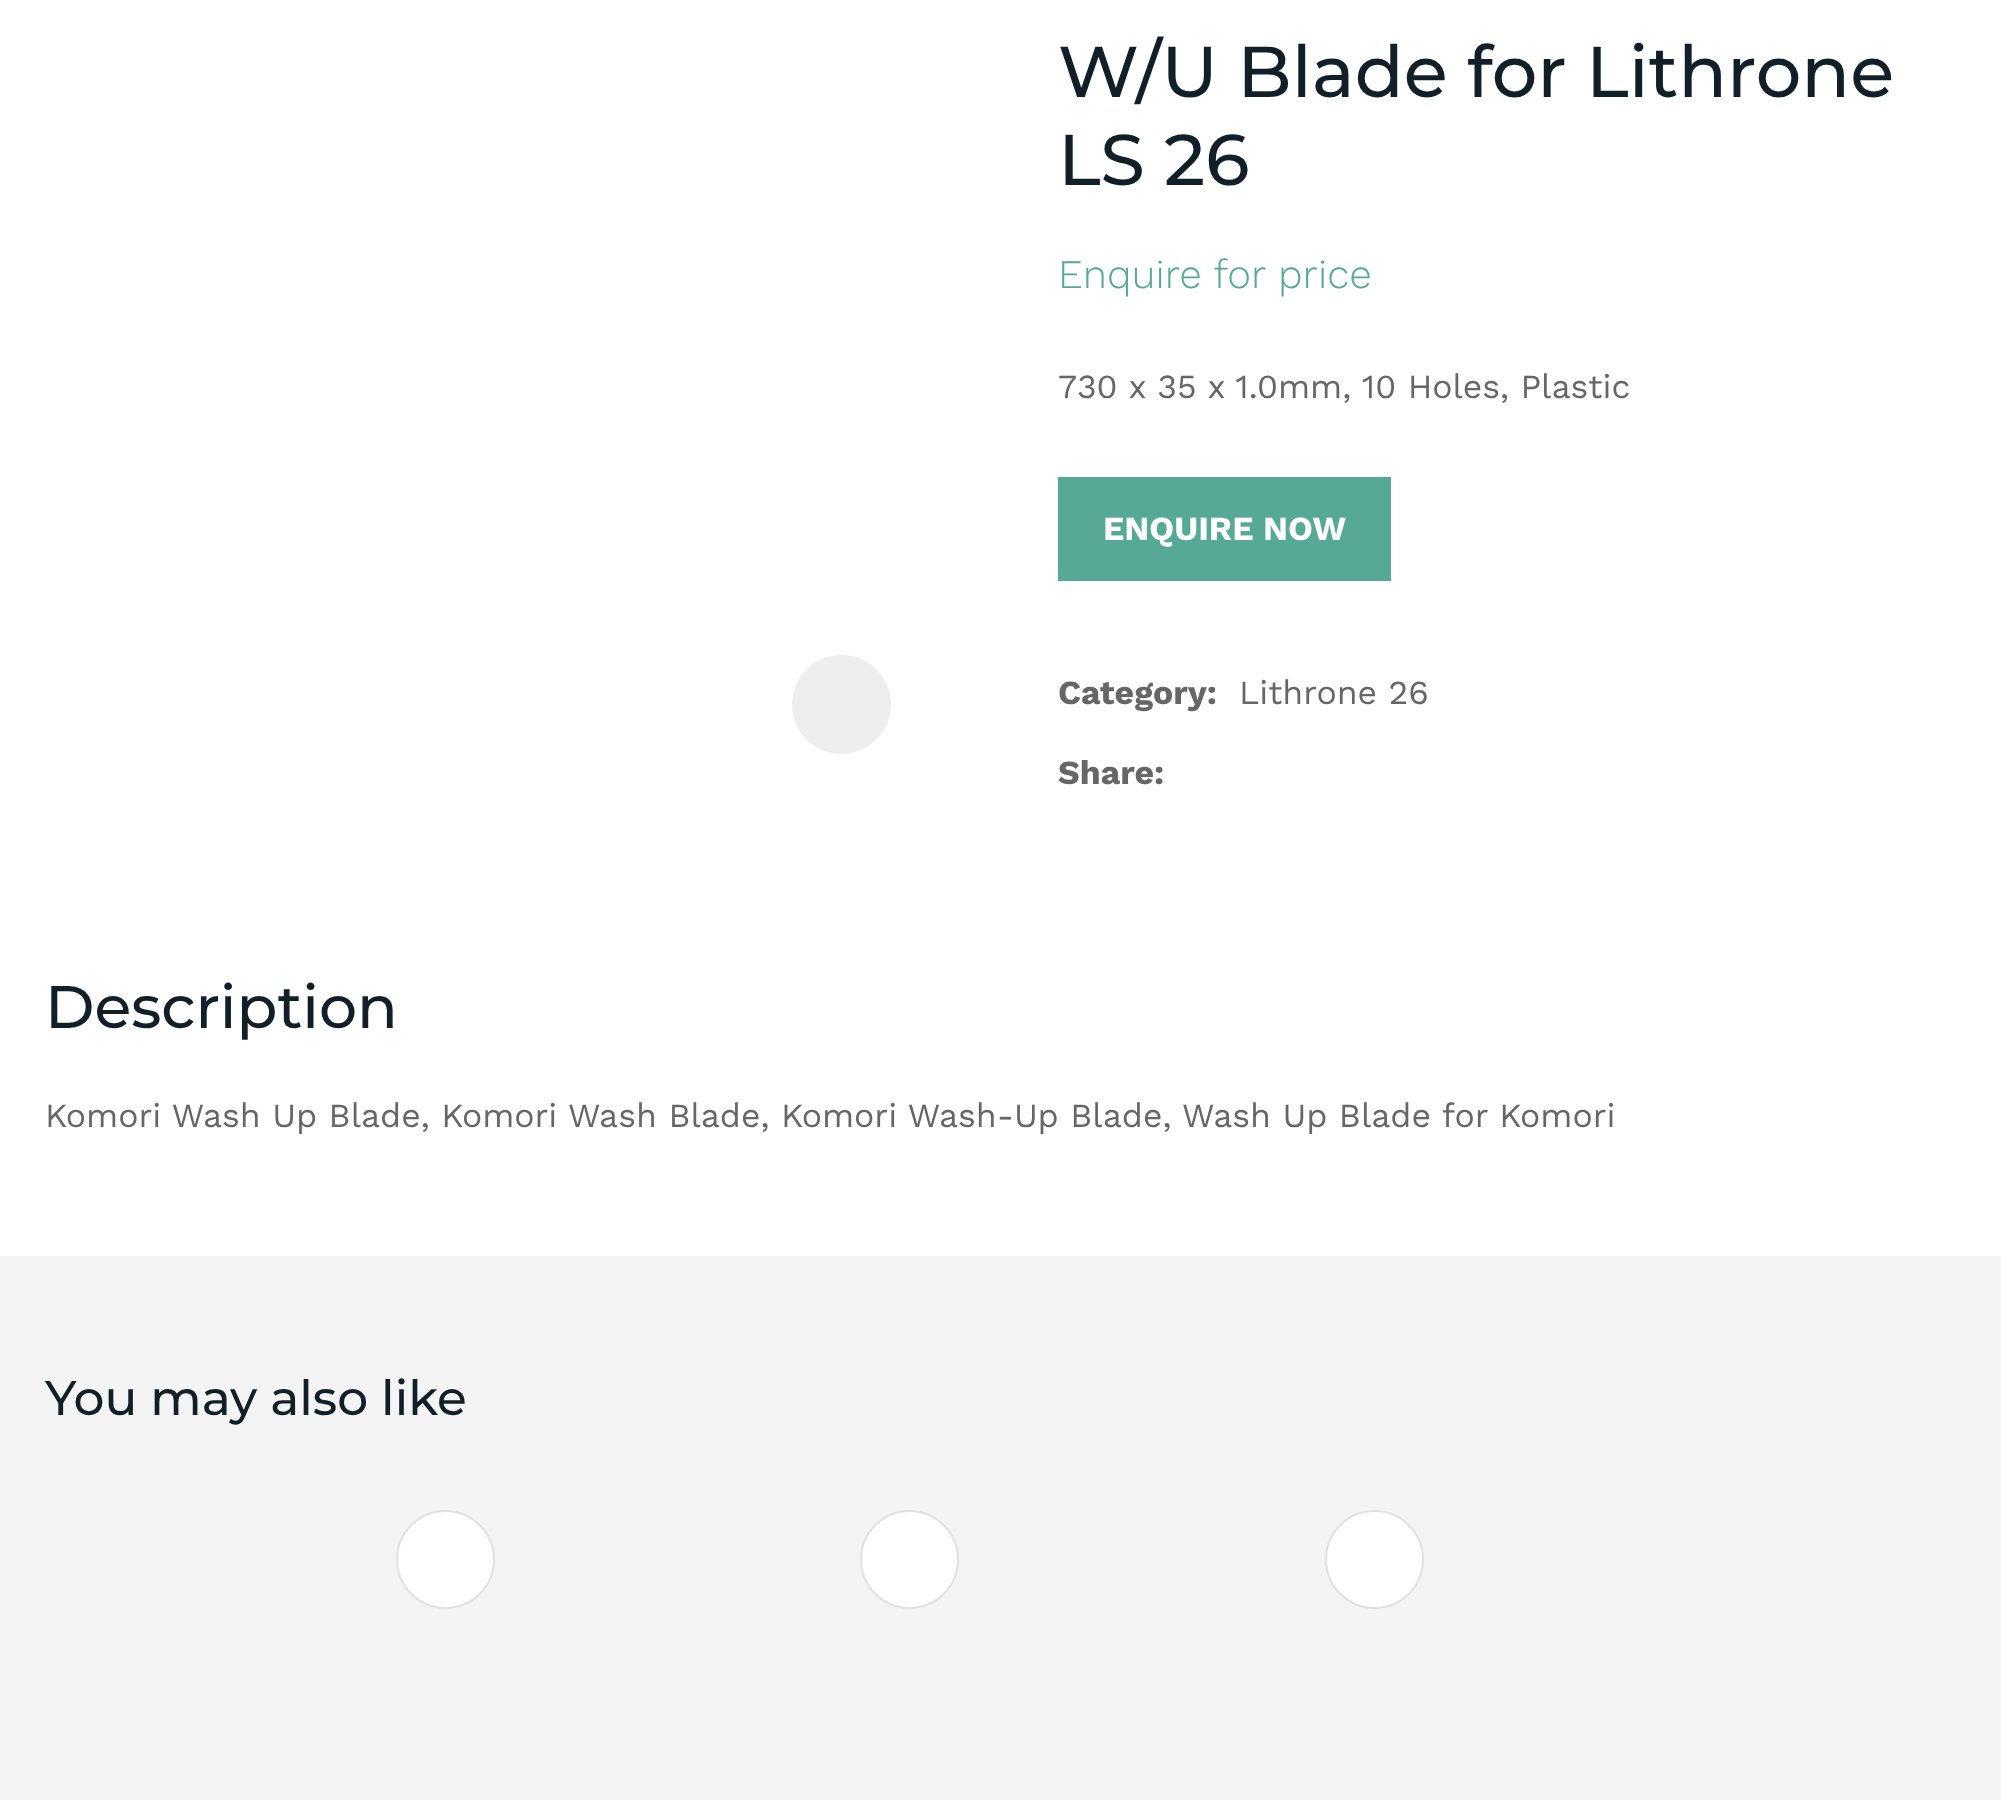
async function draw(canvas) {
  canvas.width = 2001;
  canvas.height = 1800;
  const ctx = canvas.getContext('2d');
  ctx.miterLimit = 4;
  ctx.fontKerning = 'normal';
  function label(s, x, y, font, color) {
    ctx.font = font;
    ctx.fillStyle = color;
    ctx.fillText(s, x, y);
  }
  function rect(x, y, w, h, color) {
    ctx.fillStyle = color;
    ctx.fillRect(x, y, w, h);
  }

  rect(0, 0, 2001, 1800, '#fff');
  ctx.fillStyle = '#eee';
  ctx.beginPath();
  ctx.arc(841.5, 704.5, 49.5, 0, 2 * Math.PI);
  ctx.fill();
  label('W/U Blade for Lithrone', 1058, 97, '500 71.8px Montserrat', '#112028');
  label('LS 26', 1058, 185, '500 71.8px Montserrat', '#112028');
  label('Enquire for price', 1058, 288, '300 40.5px Work Sans', '#55a996');
  label('730 x 35 x 1.0mm, 10 Holes, Plastic', 1058, 398, '33.75px Work Sans', '#666');
  rect(1058, 477, 333, 104, '#55a996');
  label('ENQUIRE NOW', 1103, 540, 'bold 33.75px Work Sans', '#fff');
  label('Category:', 1058, 704, 'bold 33.75px Work Sans', '#666');
  label('Lithrone 26', 1239, 704, '33.75px Work Sans', '#666');
  label('Share:', 1058, 784, 'bold 33.75px Work Sans', '#666');
  label('Description', 45, 1028, '500 60px Montserrat', '#112028');
  label('Komori Wash Up Blade, Komori Wash Blade, Komori Wash-Up Blade, Wash Up Blade for Komori', 45, 1127, '33.75px Work Sans', '#666');
  rect(0, 1256, 2001, 544, '#f4f4f4');
  label('You may also like', 45, 1415, '500 48.6px Montserrat', '#112028');
  ctx.fillStyle = '#fff';
  ctx.beginPath();
  ctx.arc(445.5, 1559.5, 48.5, 0, 2 * Math.PI);
  ctx.fill();
  ctx.strokeStyle = '#e1e1e1';
  ctx.lineWidth = 2;
  ctx.stroke();
  ctx.beginPath();
  ctx.arc(909.5, 1559.5, 48.5, 0, 2 * Math.PI);
  ctx.fill();
  ctx.stroke();
  ctx.beginPath();
  ctx.arc(1374.5, 1559.5, 48.5, 0, 2 * Math.PI);
  ctx.fill();
  ctx.stroke();
}

draw(document.querySelector('canvas'));
